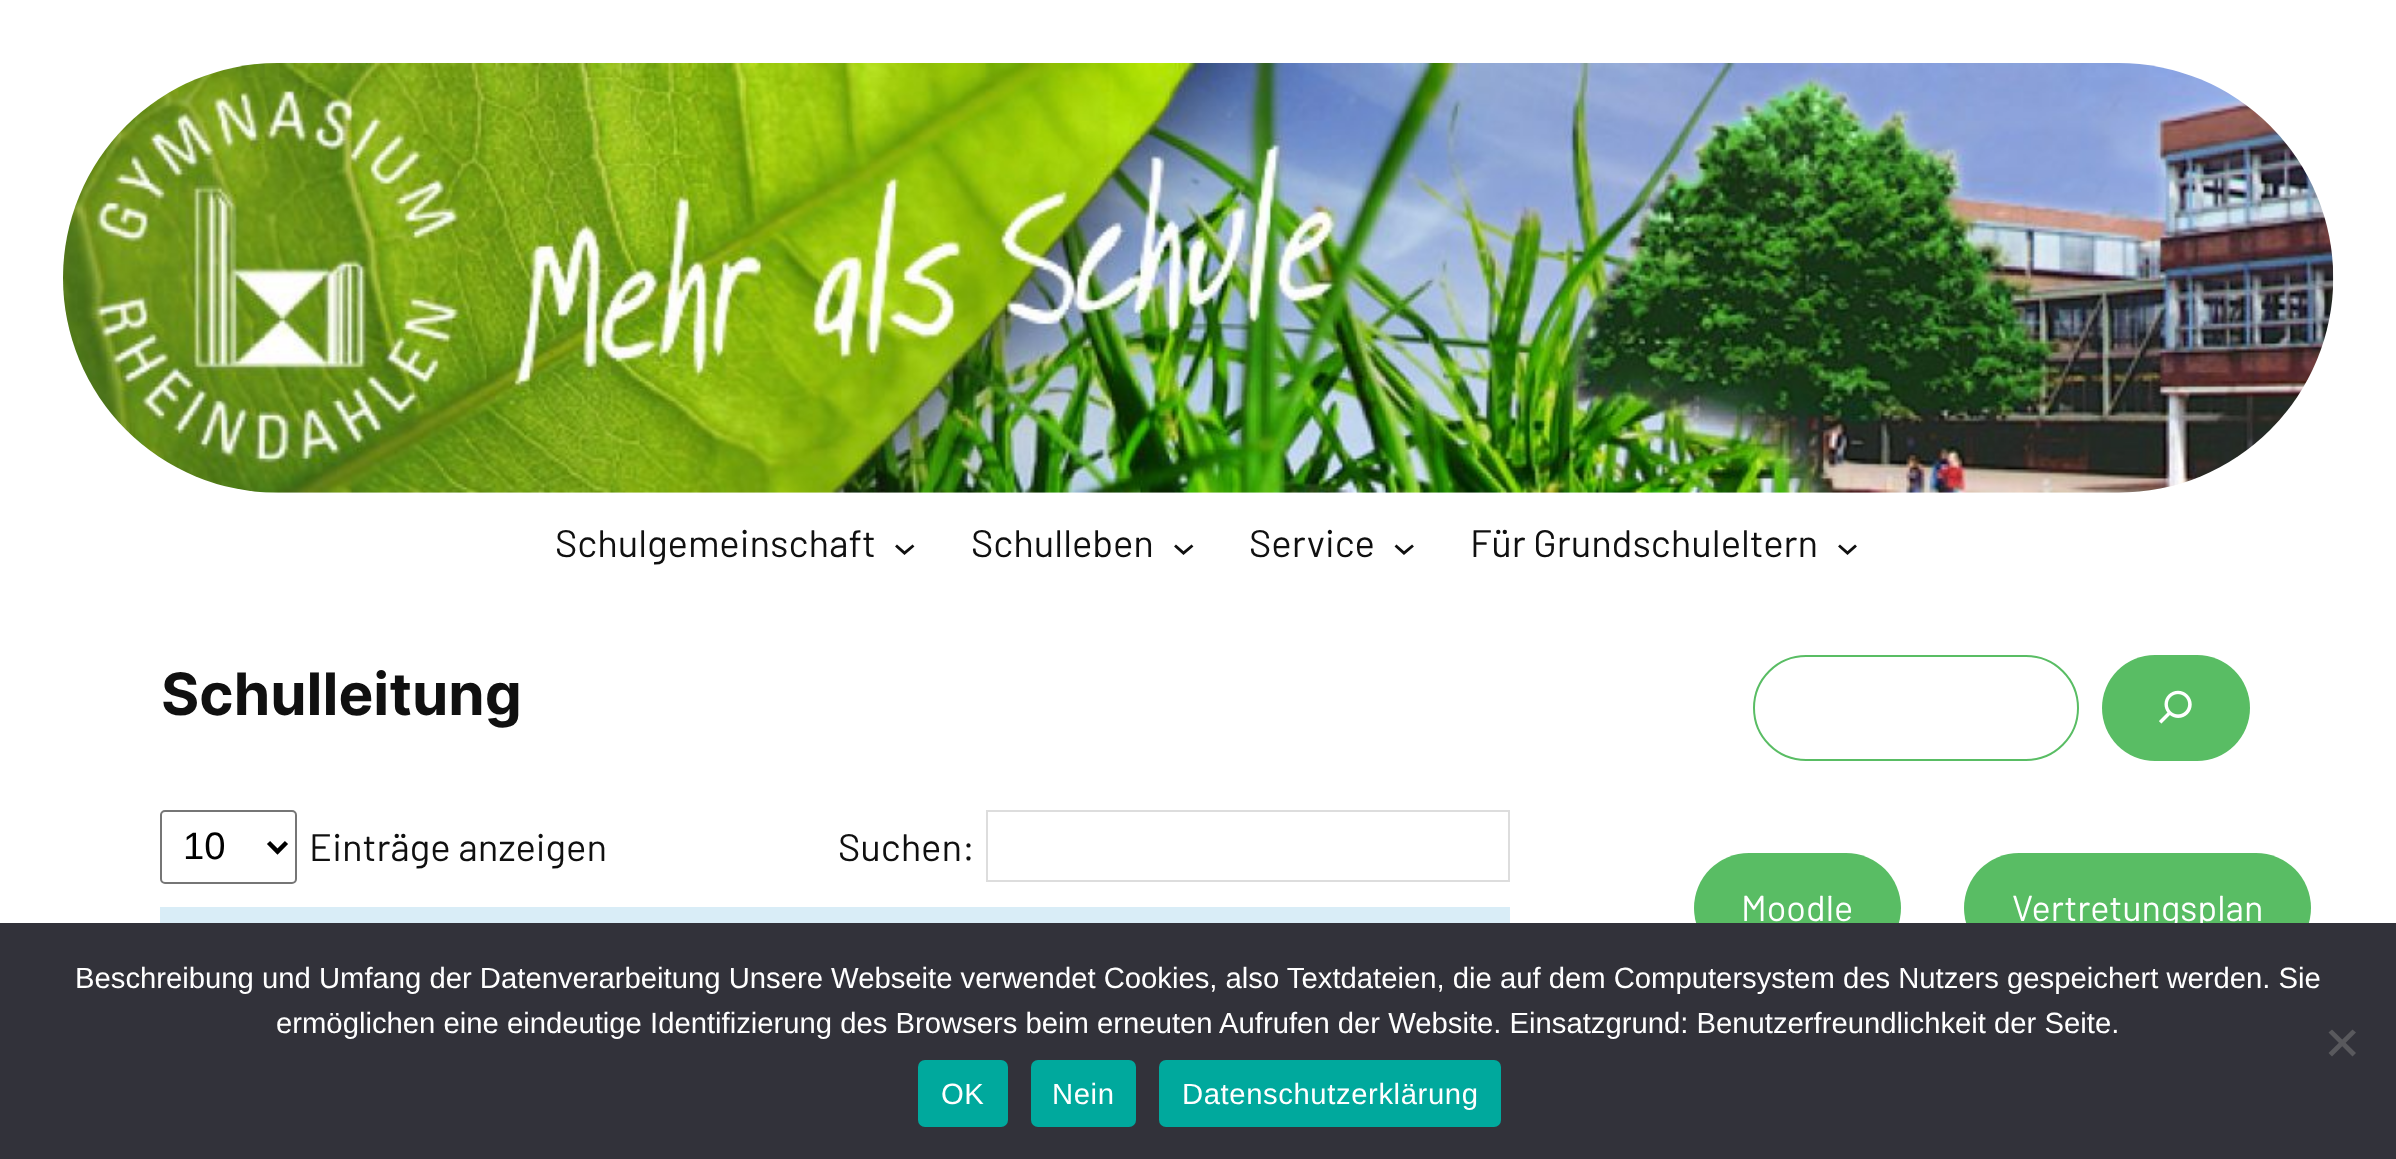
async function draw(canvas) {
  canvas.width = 2396;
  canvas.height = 1159;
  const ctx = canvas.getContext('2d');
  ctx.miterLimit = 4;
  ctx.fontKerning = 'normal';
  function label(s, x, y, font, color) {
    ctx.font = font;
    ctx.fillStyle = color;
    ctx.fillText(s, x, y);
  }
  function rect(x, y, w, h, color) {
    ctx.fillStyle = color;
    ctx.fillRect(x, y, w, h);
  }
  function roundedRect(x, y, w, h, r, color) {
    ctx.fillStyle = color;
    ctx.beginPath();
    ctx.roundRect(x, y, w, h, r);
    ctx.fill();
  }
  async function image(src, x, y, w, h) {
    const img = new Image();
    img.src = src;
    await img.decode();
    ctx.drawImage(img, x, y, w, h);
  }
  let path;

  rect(0, 0, 2396, 1159, '#fff');
  await image('assets/img1.png', 63, 63, 2271, 430);
  label('Schulgemeinschaft', 555, 557, '38.25px Barlow', '#101010');
  path = new Path2D('M896 545.5L904.5 553L913.5 545.5');
  ctx.strokeStyle = '#101010';
  ctx.lineWidth = 2.9;
  ctx.stroke(path);
  label('Schulleben', 971, 557, '38.25px Barlow', '#101010');
  path = new Path2D('M1175 545.5L1183.5 553L1192.5 545.5');
  ctx.stroke(path);
  label('Service', 1249, 557, '38.25px Barlow', '#101010');
  path = new Path2D('M1395.5 545.5L1404 553L1413 545.5');
  ctx.stroke(path);
  label('Für Grundschuleltern', 1470, 557, '38.25px Barlow', '#101010');
  path = new Path2D('M1839 545.5L1847.5 553L1856 545.5');
  ctx.stroke(path);
  label('Schulleitung', 161, 715, 'bold 58.5px Inter', '#101010');
  ctx.beginPath();
  ctx.roundRect(161, 811, 135, 72, 4);
  ctx.strokeStyle = '#767676';
  ctx.lineWidth = 2;
  ctx.stroke();
  path = new Path2D('M268.5 842.5L277.5 851.5L286.5 842.5');
  ctx.strokeStyle = '#000';
  ctx.lineWidth = 4.5;
  ctx.stroke(path);
  label('10', 183, 859, '38.25px Liberation Sans', '#000');
  label('Einträge anzeigen', 309, 861, '38.25px Barlow', '#101010');
  label('Suchen:', 838, 861, '38.25px Barlow', '#101010');
  ctx.strokeStyle = '#ddd';
  ctx.lineWidth = 2;
  ctx.strokeRect(987, 811, 522, 70);
  rect(160, 907, 1350, 16, '#d9edf7');
  ctx.beginPath();
  ctx.roundRect(1754, 656, 324, 104, 52);
  ctx.strokeStyle = '#59bd64';
  ctx.stroke();
  roundedRect(2102, 655, 148, 106, 53, '#59bd64');
  await image('assets/img2.png', 2159, 690, 33, 34);
  roundedRect(1694, 853, 207, 110, 55, '#59bd64');
  label('Moodle', 1741, 921, '36px Barlow', '#fff');
  roundedRect(1964, 853, 347, 110, 55, '#59bd64');
  label('Vertretungsplan', 2012, 921, '36px Barlow', '#fff');
  rect(0, 923, 2396, 236, '#32323a');
  label('Beschreibung und Umfang der Datenverarbeitung Unsere Webseite verwendet Cookies, also Textdateien, die auf dem Computersystem des Nutzers gespeichert werden. Sie', 75, 988, '29.25px Liberation Sans', '#fff');
  label('ermöglichen eine eindeutige Identifizierung des Browsers beim erneuten Aufrufen der Website. Einsatzgrund: Benutzerfreundlichkeit der Seite.', 276, 1033, '29.25px Liberation Sans', '#fff');
  ctx.fillStyle = '#59595d';
  path = new Path2D('M2352.5 1029.5L2356 1032.5L2332 1056.5L2328.5 1053Z');
  ctx.fill(path);
  path = new Path2D('M2328.5 1032.5L2332 1029.5L2356 1053L2352.5 1056.5Z');
  ctx.fill(path);
  roundedRect(918, 1060, 90, 67, 7, '#00a99d');
  ctx.letterSpacing = '0.6px';
  label('OK', 941, 1104, '29.25px Liberation Sans', '#fff');
  roundedRect(1031, 1060, 105, 67, 7, '#00a99d');
  label('Nein', 1052, 1104, '29.25px Liberation Sans', '#fff');
  roundedRect(1159, 1060, 342, 67, 7, '#00a99d');
  label('Datenschutzerklärung', 1182, 1104, '29.25px Liberation Sans', '#fff');
}

draw(document.querySelector('canvas'));
